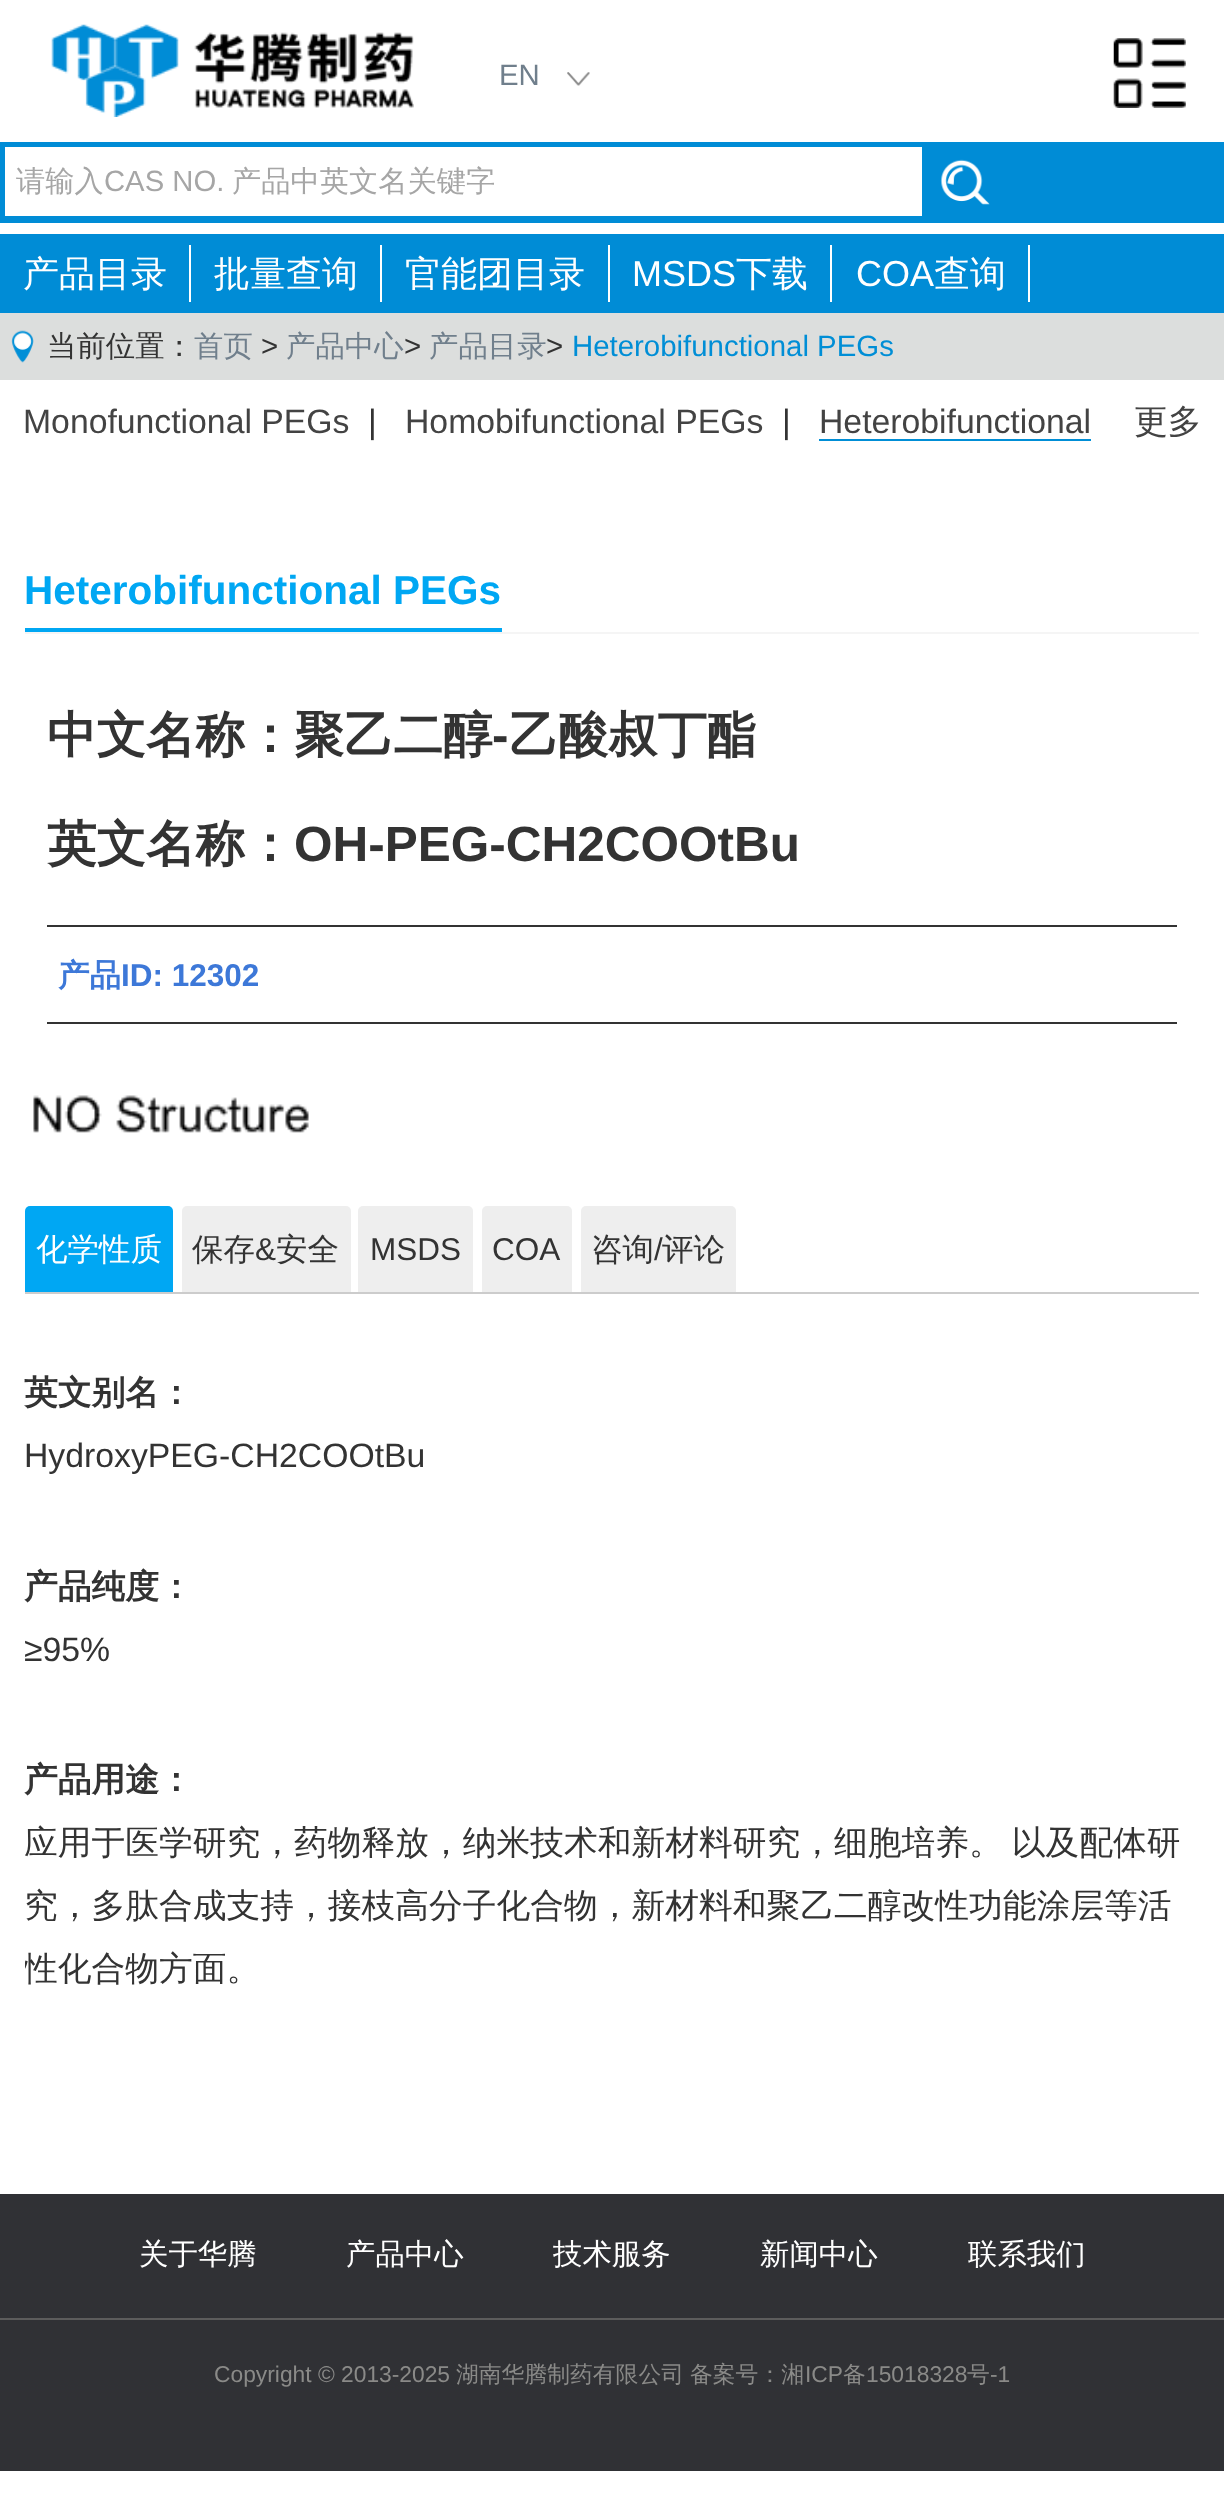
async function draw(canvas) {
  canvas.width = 1224;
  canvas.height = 2504;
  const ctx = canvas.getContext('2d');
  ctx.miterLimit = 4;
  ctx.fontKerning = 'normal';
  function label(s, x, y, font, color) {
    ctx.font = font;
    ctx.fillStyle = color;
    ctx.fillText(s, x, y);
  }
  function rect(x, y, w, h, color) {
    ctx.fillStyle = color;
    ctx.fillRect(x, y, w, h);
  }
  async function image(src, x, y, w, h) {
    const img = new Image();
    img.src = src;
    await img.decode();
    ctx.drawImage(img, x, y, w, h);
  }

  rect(0, 0, 1224, 2504, '#fff');
  await image('assets/img1.png', 51, 24, 363, 93);
  label('EN', 499, 85, '29.4px Liberation Sans', '#707f8c');
  await image('assets/img2.png', 567, 72, 23, 14);
  await image('assets/img3.png', 1113, 38, 73, 70);
  rect(0, 142, 1224, 81, '#008cd6');
  rect(5, 147, 917, 69, '#fff');
  label('请输入', 16, 191, '500 29.25px WenQuanYi Zen Hei', '#a6a6a6');
  label('CAS NO.', 104, 191, '29.25px Liberation Sans', '#a6a6a6');
  label('产品中英文名关键字', 232, 191, '500 29.25px WenQuanYi Zen Hei', '#a6a6a6');
  await image('assets/img4.png', 940, 159, 50, 46);
  rect(0, 234, 1224, 79, '#008cd6');
  label('产品目录', 23, 286, '500 36px WenQuanYi Zen Hei', '#fff');
  rect(189, 245, 2, 57, '#fff');
  label('批量查询', 214, 286, '500 36px WenQuanYi Zen Hei', '#fff');
  rect(380, 245, 2, 57, '#fff');
  label('官能团目录', 405, 286, '500 36px WenQuanYi Zen Hei', '#fff');
  rect(608, 245, 2, 57, '#fff');
  label('MSDS', 632, 286, '36px Liberation Sans', '#fff');
  label('下载', 736, 286, '500 36px WenQuanYi Zen Hei', '#fff');
  rect(830, 245, 2, 57, '#fff');
  label('COA', 856, 286, '36px Liberation Sans', '#fff');
  label('查询', 934, 286, '500 36px WenQuanYi Zen Hei', '#fff');
  rect(1028, 245, 2, 57, '#fff');
  rect(0, 313, 1224, 67, '#dcdedd');
  await image('assets/img5.png', 11, 330, 23, 33);
  label('当前位置：', 47, 356, '500 29.4px WenQuanYi Zen Hei', '#333');
  label('首页', 194, 356, '500 29.4px WenQuanYi Zen Hei', '#707f8c');
  label('>', 261, 356, '29.4px Liberation Sans', '#333');
  label('产品中心', 286, 356, '500 29.4px WenQuanYi Zen Hei', '#707f8c');
  label('>', 404, 356, '29.4px Liberation Sans', '#333');
  label('产品目录', 429, 356, '500 29.4px WenQuanYi Zen Hei', '#707f8c');
  label('>', 546, 356, '29.4px Liberation Sans', '#333');
  label('Heterobifunctional PEGs', 572, 356, '29.4px Liberation Sans', '#008ed6');
  label('Monofunctional PEGs', 23, 433, '33.75px Liberation Sans', '#434343');
  label('|', 368, 433, '33.75px Liberation Sans', '#333');
  label('Homobifunctional PEGs', 405, 433, '33.75px Liberation Sans', '#434343');
  label('|', 782, 433, '33.75px Liberation Sans', '#333');
  label('Heterobifunctional', 819, 433, '33.75px Liberation Sans', '#434343');
  rect(819, 439, 272, 2, '#008ed6');
  label('更多', 1134, 433, '500 33.75px WenQuanYi Zen Hei', '#434343');
  rect(25, 632, 1174, 2, '#f5f5f5');
  rect(25, 628, 477, 4, '#00a7f3');
  label('Heterobifunctional PEGs', 24, 604, 'bold 40.5px Liberation Sans', '#00a7f3');
  label('中文名称：聚乙二醇', 47, 752, 'bold 49.5px WenQuanYi Zen Hei', '#333');
  label('-', 492, 752, 'bold 49.5px Liberation Sans', '#333');
  label('乙酸叔丁酯', 509, 752, 'bold 49.5px WenQuanYi Zen Hei', '#333');
  label('英文名称：', 47, 861, 'bold 49.5px WenQuanYi Zen Hei', '#333');
  label('OH-PEG-CH2COOtBu', 294, 861, 'bold 49.5px Liberation Sans', '#333');
  rect(47, 925, 1130, 2, '#333');
  label('产品', 58, 986, 'bold 31.5px WenQuanYi Zen Hei', '#3d78d8');
  label('ID: 12302', 121, 986, 'bold 31.5px Liberation Sans', '#3d78d8');
  rect(47, 1022, 1130, 2, '#333');
  await image('assets/img6.png', 33, 1095, 276, 38);
  rect(25, 1292, 1174, 2, '#ccc');
  ctx.fillStyle = '#00a7f3';
  ctx.beginPath();
  ctx.roundRect(25, 1206, 148, 86, [5, 5, 0, 0]);
  ctx.fill();
  label('化学性质', 36, 1260, '500 31.5px WenQuanYi Zen Hei', '#fff');
  ctx.fillStyle = '#eee';
  ctx.beginPath();
  ctx.roundRect(182, 1206, 169, 86, [5, 5, 0, 0]);
  ctx.fill();
  label('保存', 192, 1260, '500 31.5px WenQuanYi Zen Hei', '#333');
  label('&', 255, 1260, '31.5px Liberation Sans', '#333');
  label('安全', 276, 1260, '500 31.5px WenQuanYi Zen Hei', '#333');
  ctx.fillStyle = '#eee';
  ctx.beginPath();
  ctx.roundRect(358, 1206, 115, 86, [5, 5, 0, 0]);
  ctx.fill();
  label('MSDS', 370, 1260, '31.5px Liberation Sans', '#333');
  ctx.fillStyle = '#eee';
  ctx.beginPath();
  ctx.roundRect(482, 1206, 90, 86, [5, 5, 0, 0]);
  ctx.fill();
  label('COA', 492, 1260, '31.5px Liberation Sans', '#333');
  ctx.fillStyle = '#eee';
  ctx.beginPath();
  ctx.roundRect(581, 1206, 155, 86, [5, 5, 0, 0]);
  ctx.fill();
  label('咨询', 591, 1260, '500 31.5px WenQuanYi Zen Hei', '#333');
  label('/', 654, 1260, '31.5px Liberation Sans', '#333');
  label('评论', 662, 1260, '500 31.5px WenQuanYi Zen Hei', '#333');
  label('英文别名：', 24, 1404, 'bold 33.75px WenQuanYi Zen Hei', '#333');
  label('HydroxyPEG-CH2COOtBu', 24, 1467, '33.75px Liberation Sans', '#333');
  label('产品纯度：', 24, 1598, 'bold 33.75px WenQuanYi Zen Hei', '#333');
  label('≥95%', 24, 1661, '33.75px Liberation Sans', '#333');
  label('产品用途：', 24, 1791, 'bold 33.75px WenQuanYi Zen Hei', '#333');
  ctx.wordSpacing = '-1px';
  label('应用于医学研究，药物释放，纳米技术和新材料研究，细胞培养。 以及配体研', 24, 1854, '500 33.75px WenQuanYi Zen Hei', '#333');
  ctx.wordSpacing = '0px';
  label('究，多肽合成支持，接枝高分子化合物，新材料和聚乙二醇改性功能涂层等活', 24, 1917, '500 33.75px WenQuanYi Zen Hei', '#333');
  ctx.save();
  ctx.beginPath();
  ctx.rect(25, 1361, 1174, 707);
  ctx.clip();
  label('性化合物方面。', 24, 1980, '500 33.75px WenQuanYi Zen Hei', '#333');
  ctx.restore();
  rect(0, 2194, 1224, 277, '#303135');
  label('关于华腾', 139, 2264, '500 29.4px WenQuanYi Zen Hei', '#fff');
  label('产品中心', 346, 2264, '500 29.4px WenQuanYi Zen Hei', '#fff');
  label('技术服务', 553, 2264, '500 29.4px WenQuanYi Zen Hei', '#fff');
  label('新闻中心', 760, 2264, '500 29.4px WenQuanYi Zen Hei', '#fff');
  label('联系我们', 968, 2264, '500 29.4px WenQuanYi Zen Hei', '#fff');
  rect(0, 2318, 1224, 2, '#5c5c5c');
  label('Copyright © 2013-2025', 214, 2382, '22.8px Liberation Sans', '#8a8a88');
  label('湖南华腾制药有限公司', 456, 2382, '500 22.8px WenQuanYi Zen Hei', '#8a8a88');
  label('备案号：湘', 690, 2382, '500 22.8px WenQuanYi Zen Hei', '#8a8a88');
  label('ICP', 805, 2382, '22.8px Liberation Sans', '#8a8a88');
  label('备', 843, 2382, '500 22.8px WenQuanYi Zen Hei', '#8a8a88');
  label('15018328', 866, 2382, '22.8px Liberation Sans', '#8a8a88');
  label('号', 967, 2382, '500 22.8px WenQuanYi Zen Hei', '#8a8a88');
  label('-1', 990, 2382, '22.8px Liberation Sans', '#8a8a88');
}

draw(document.querySelector('canvas'));
